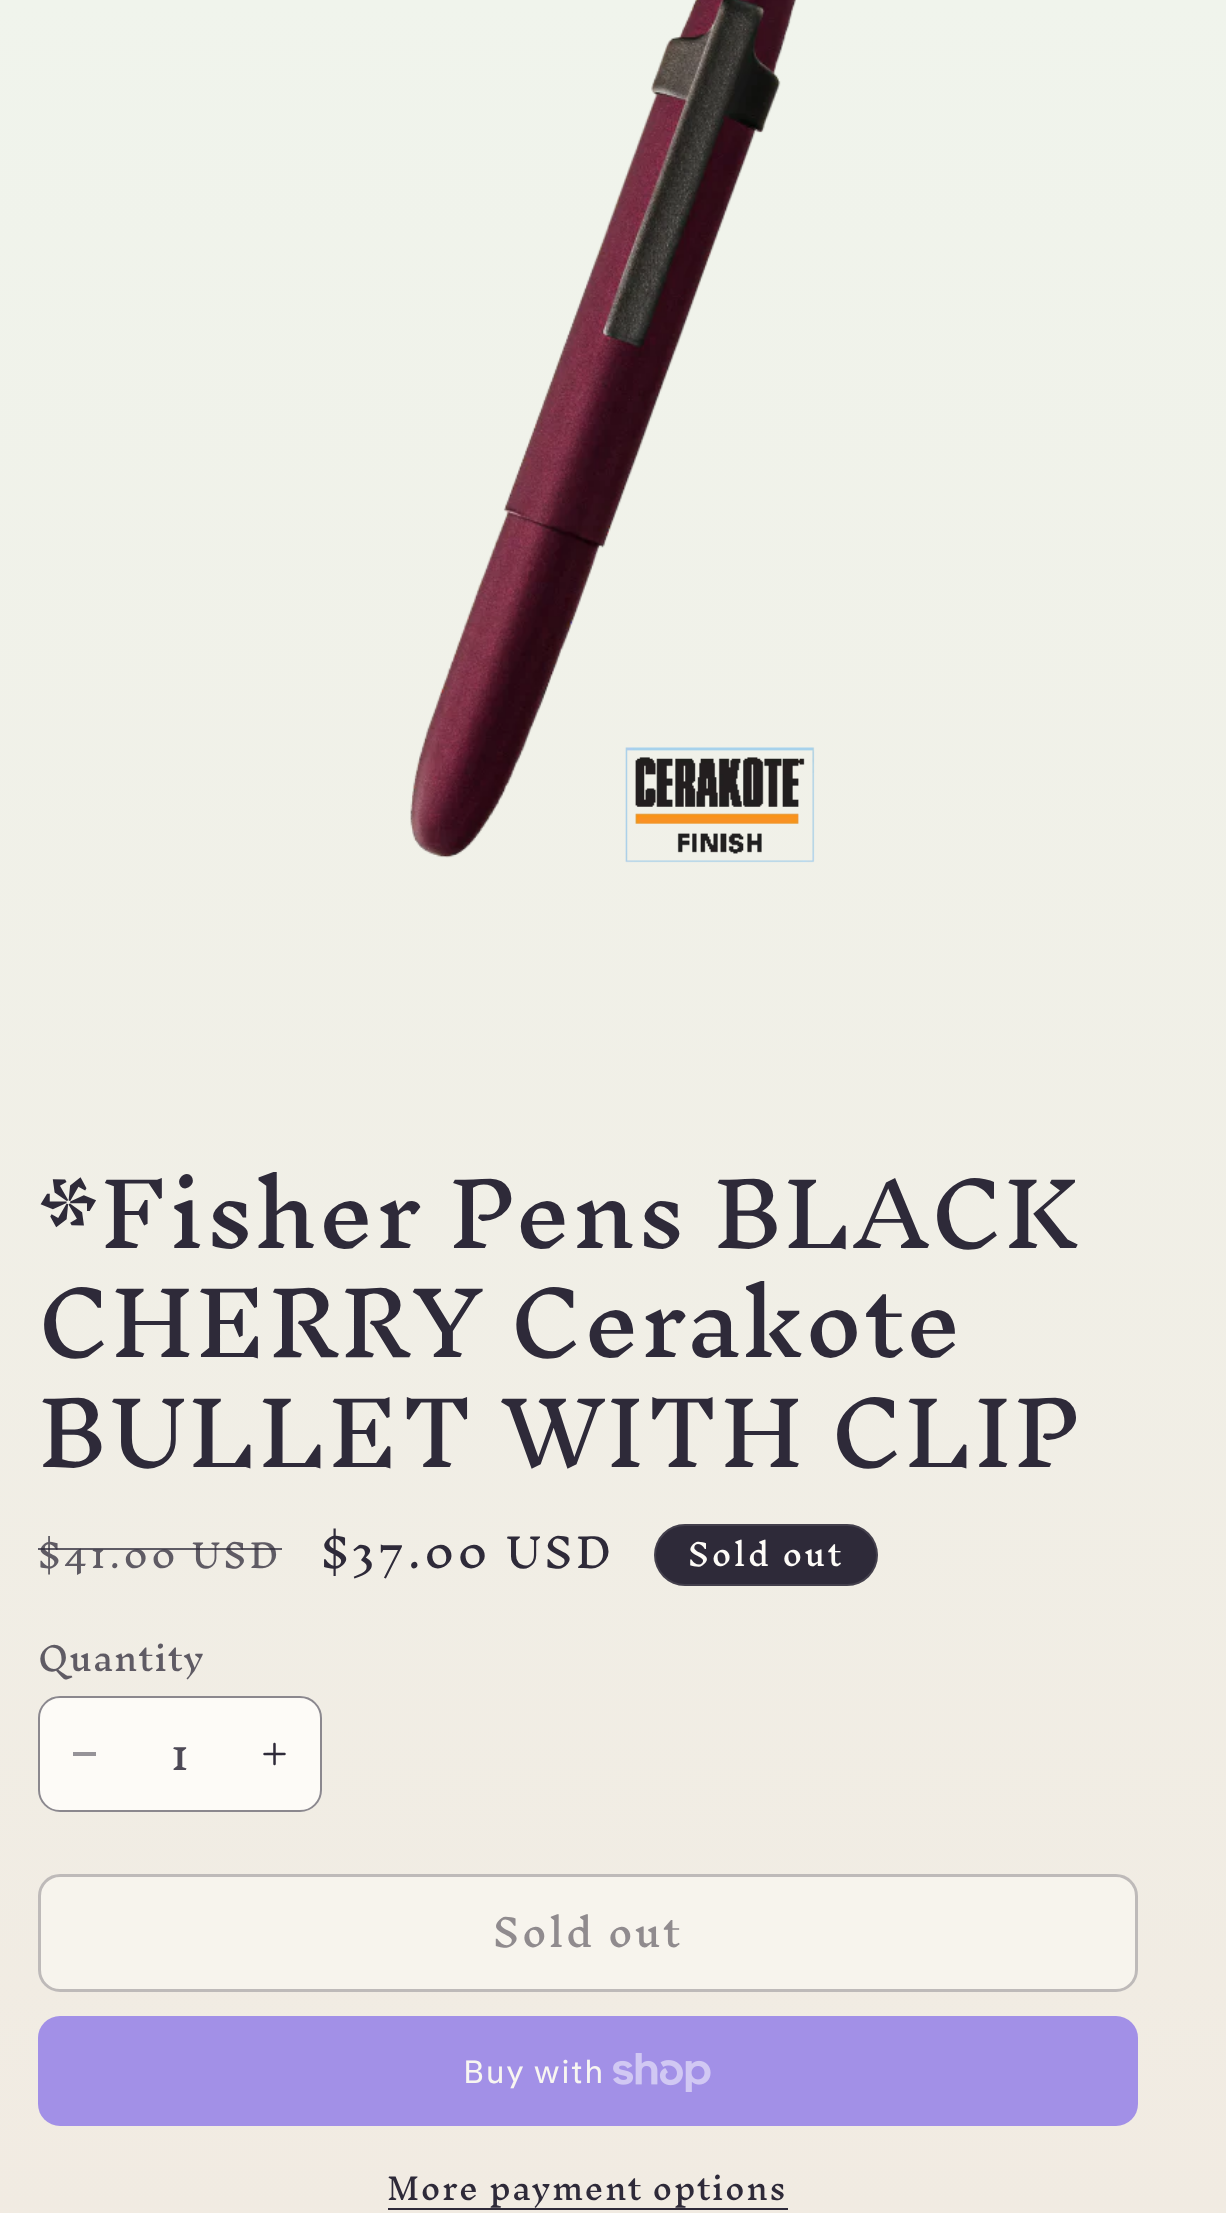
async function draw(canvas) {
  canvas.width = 1226;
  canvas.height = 2213;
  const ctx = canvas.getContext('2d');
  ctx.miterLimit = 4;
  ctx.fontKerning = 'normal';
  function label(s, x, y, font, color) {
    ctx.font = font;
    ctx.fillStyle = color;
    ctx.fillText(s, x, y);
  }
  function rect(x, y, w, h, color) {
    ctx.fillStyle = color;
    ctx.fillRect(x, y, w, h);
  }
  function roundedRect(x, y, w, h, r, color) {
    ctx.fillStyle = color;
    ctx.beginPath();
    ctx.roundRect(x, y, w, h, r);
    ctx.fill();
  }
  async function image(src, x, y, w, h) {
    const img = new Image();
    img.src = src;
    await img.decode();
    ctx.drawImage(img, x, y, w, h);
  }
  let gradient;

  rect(0, 0, 1226, 2213, '#fff');
  gradient = ctx.createLinearGradient(613, 0, 613, 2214);
  gradient.addColorStop(0, '#f0f4ec');
  gradient.addColorStop(1, '#f1ebe2');
  ctx.fillStyle = gradient;
  ctx.fillRect(0, 0, 1226, 2213);
  await image('assets/img1.png', 410, 0, 405, 863);
  ctx.letterSpacing = '1.75px';
  label('*Fisher Pens BLACK', 38, 1248, '87px Inknut Antiqua', '#2e2a39');
  label('CHERRY Cerakote', 38, 1357, '87px Inknut Antiqua', '#2e2a39');
  label('BULLET WITH CLIP', 38, 1467, '87px Inknut Antiqua', '#2e2a39');
  ctx.letterSpacing = '3.25px';
  label('$41.00 USD', 38, 1568, '32.5px Inknut Antiqua', '#5f5b64');
  rect(38, 1548, 244, 2, '#2e2a39bf');
  label('$37.00 USD', 321, 1568, '40px Inknut Antiqua', '#2e2a39');
  roundedRect(654, 1524, 224, 62, 31, '#2e2a39');
  ctx.beginPath();
  ctx.roundRect(655, 1525, 222, 60, 30);
  ctx.strokeStyle = '#fdfbf71a';
  ctx.lineWidth = 2;
  ctx.stroke();
  ctx.letterSpacing = '2.5px';
  label('Sold out', 688, 1566, '30px Inknut Antiqua', '#fdfbf7');
  ctx.letterSpacing = '1px';
  label('Quantity', 38, 1671, '32.5px Inknut Antiqua', '#5f5b64');
  roundedRect(38, 1696, 284, 116, 22, '#fdfbf7');
  rect(73, 1752, 23, 4, '#969398');
  await image('assets/img2.png', 263, 1742, 23, 24);
  ctx.beginPath();
  ctx.roundRect(39, 1697, 282, 114, 21);
  ctx.strokeStyle = '#2e2a398c';
  ctx.stroke();
  ctx.letterSpacing = '0px';
  label('1', 170, 1770, '40px Inknut Antiqua', '#4d4956');
  roundedRect(38, 1874, 1100, 118, 22, '#f7f4ed');
  ctx.beginPath();
  ctx.roundRect(39, 1875, 1098, 116, 21);
  ctx.strokeStyle = '#f7f4ed';
  ctx.stroke();
  ctx.beginPath();
  ctx.roundRect(39.5, 1875.5, 1097, 115, 20.5);
  ctx.strokeStyle = '#908b8e8c';
  ctx.lineWidth = 3;
  ctx.stroke();
  ctx.letterSpacing = '2.5px';
  label('Sold out', 493, 1947, '37.5px Inknut Antiqua', '#908b8e');
  roundedRect(38, 2016, 1100, 110, 22, '#a290e7');
  ctx.letterSpacing = '1.5px';
  label('Buy with', 463, 2083, '32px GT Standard', '#f8f6f1');
  await image('assets/img3.png', 613, 2053, 98, 39);
  ctx.letterSpacing = '1.25px';
  label('More payment options', 387, 2200, '30px Inknut Antiqua', '#2e2a39');
  rect(388, 2208, 400, 2, '#2e2a39');
}

draw(document.querySelector('canvas'));
